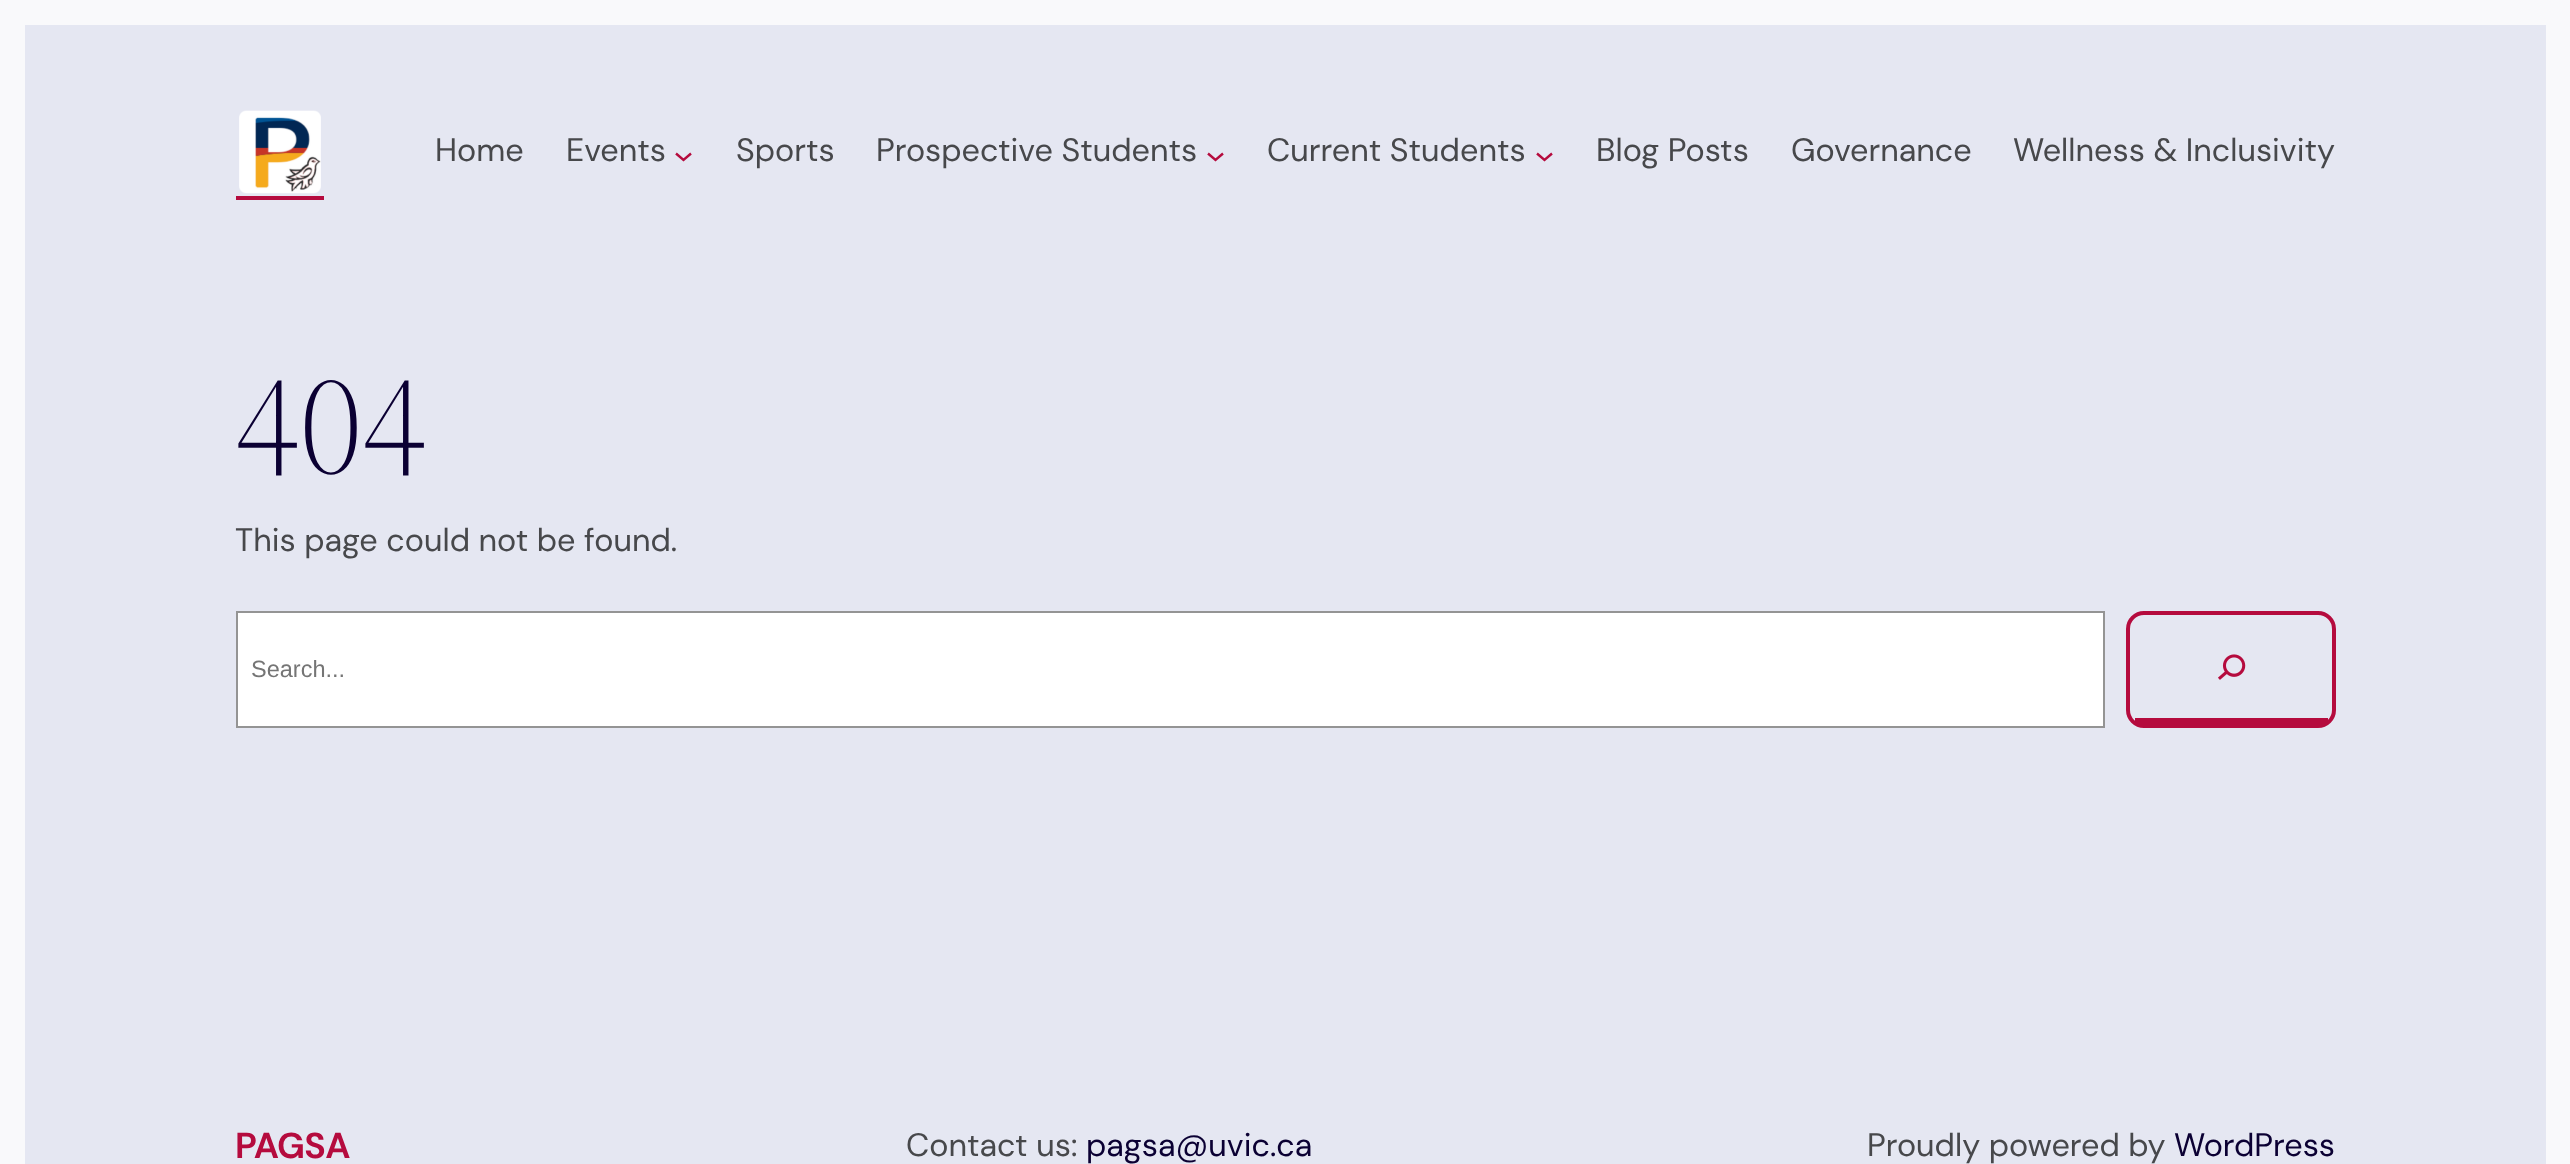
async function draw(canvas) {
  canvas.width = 2570;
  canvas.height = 1164;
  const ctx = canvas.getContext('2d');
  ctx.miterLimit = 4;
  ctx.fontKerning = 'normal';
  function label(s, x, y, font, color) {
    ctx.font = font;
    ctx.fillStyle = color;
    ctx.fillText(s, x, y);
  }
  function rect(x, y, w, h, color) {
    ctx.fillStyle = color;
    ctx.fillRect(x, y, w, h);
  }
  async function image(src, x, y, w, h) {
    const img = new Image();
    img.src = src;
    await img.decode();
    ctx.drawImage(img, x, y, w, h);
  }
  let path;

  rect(0, 0, 2570, 1164, '#e5e7f2');
  ctx.strokeStyle = '#f9f9fb';
  ctx.lineWidth = 25;
  ctx.strokeRect(12.5, 12.5, 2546, 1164);
  rect(236, 196, 88, 4, '#b50b3e');
  await image('assets/img1.png', 239, 110, 82, 84);
  label('Home', 435, 161, '32.4px DM Sans', '#47484b');
  label('Events', 566, 161, '32.4px DM Sans', '#47484b');
  path = new Path2D('M676 153.5L683.5 160L691 153.5');
  ctx.strokeStyle = '#b50b3e';
  ctx.lineWidth = 2.4;
  ctx.stroke(path);
  label('Sports', 736, 161, '32.4px DM Sans', '#47484b');
  label('Prospective Students', 876, 161, '32.4px DM Sans', '#47484b');
  path = new Path2D('M1208 153.5L1215.5 160L1223 153.5');
  ctx.stroke(path);
  label('Current Students', 1267, 161, '32.4px DM Sans', '#47484b');
  path = new Path2D('M1537 153.5L1544.5 160L1552 153.5');
  ctx.stroke(path);
  label('Blog Posts', 1596, 161, '32.4px DM Sans', '#47484b');
  label('Governance', 1791, 161, '32.4px DM Sans', '#47484b');
  label('Wellness & Inclusivity', 2013, 161, '32.4px DM Sans', '#47484b');
  ctx.letterSpacing = '-1.5px';
  label('404', 235, 473, '300 140px "Source Serif 4"', '#0b0033');
  ctx.letterSpacing = '0px';
  label('This page could not be found.', 235, 551, '32.4px DM Sans', '#47484b');
  ctx.fillStyle = '#fff';
  ctx.beginPath();
  ctx.rect(237, 612, 1867, 115);
  ctx.fill();
  ctx.strokeStyle = '#949494';
  ctx.lineWidth = 2;
  ctx.stroke();
  label('Search...', 251, 677, '23.5px Liberation Sans', '#757575');
  ctx.beginPath();
  ctx.roundRect(2128, 613, 206, 113, 16);
  ctx.strokeStyle = '#b50b3e';
  ctx.lineWidth = 4;
  ctx.stroke();
  rect(2135, 718, 193, 6, '#b50b3e');
  await image('assets/img2.png', 2218, 654, 28, 26);
  ctx.letterSpacing = '-0.5px';
  label('PAGSA', 235, 1158, 'bold 36px DM Sans', '#b50b3e');
  ctx.letterSpacing = '0px';
  label('Contact us:', 906, 1156, '32.4px DM Sans', '#47484b');
  label('pagsa@uvic.ca', 1086, 1156, '32.4px DM Sans', '#0b0033');
  label('Proudly powered by', 1867, 1156, '32.4px DM Sans', '#47484b');
  label('WordPress', 2174, 1156, '32.4px DM Sans', '#0b0033');
}

draw(document.querySelector('canvas'));
